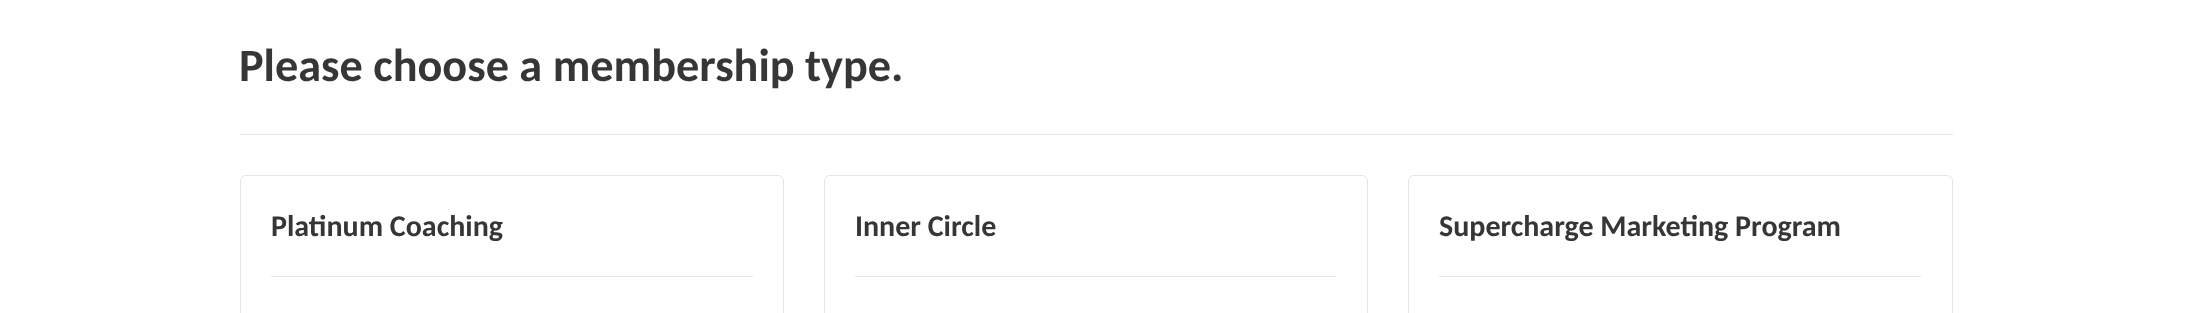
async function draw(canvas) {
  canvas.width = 2191;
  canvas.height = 313;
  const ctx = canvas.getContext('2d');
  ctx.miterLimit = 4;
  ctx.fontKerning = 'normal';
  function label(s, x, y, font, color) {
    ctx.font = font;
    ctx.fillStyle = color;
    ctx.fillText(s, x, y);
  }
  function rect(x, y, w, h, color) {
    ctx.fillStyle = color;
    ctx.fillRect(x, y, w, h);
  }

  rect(0, 0, 2191, 313, '#fff');
  rect(240, 134, 1713, 1, '#e1e7ed');
  label('Please choose a membership type.', 239, 81, 'bold 46.25px Carlito', '#363636');
  ctx.beginPath();
  ctx.roundRect(240.5, 175.5, 543, 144, 5.5);
  ctx.strokeStyle = '#e1e7ed';
  ctx.stroke();
  rect(271, 276, 482, 1, '#e1e7ed');
  label('Platinum Coaching', 271, 236, 'bold 30px Carlito', '#363636');
  ctx.beginPath();
  ctx.roundRect(824.5, 175.5, 543, 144, 5.5);
  ctx.stroke();
  rect(855, 276, 481, 1, '#e1e7ed');
  label('Inner Circle', 855, 236, 'bold 30px Carlito', '#363636');
  ctx.beginPath();
  ctx.roundRect(1408.5, 175.5, 544, 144, 5.5);
  ctx.stroke();
  rect(1439, 276, 482, 1, '#e1e7ed');
  label('Supercharge Marketing Program', 1439, 236, 'bold 30px Carlito', '#363636');
}

draw(document.querySelector('canvas'));
